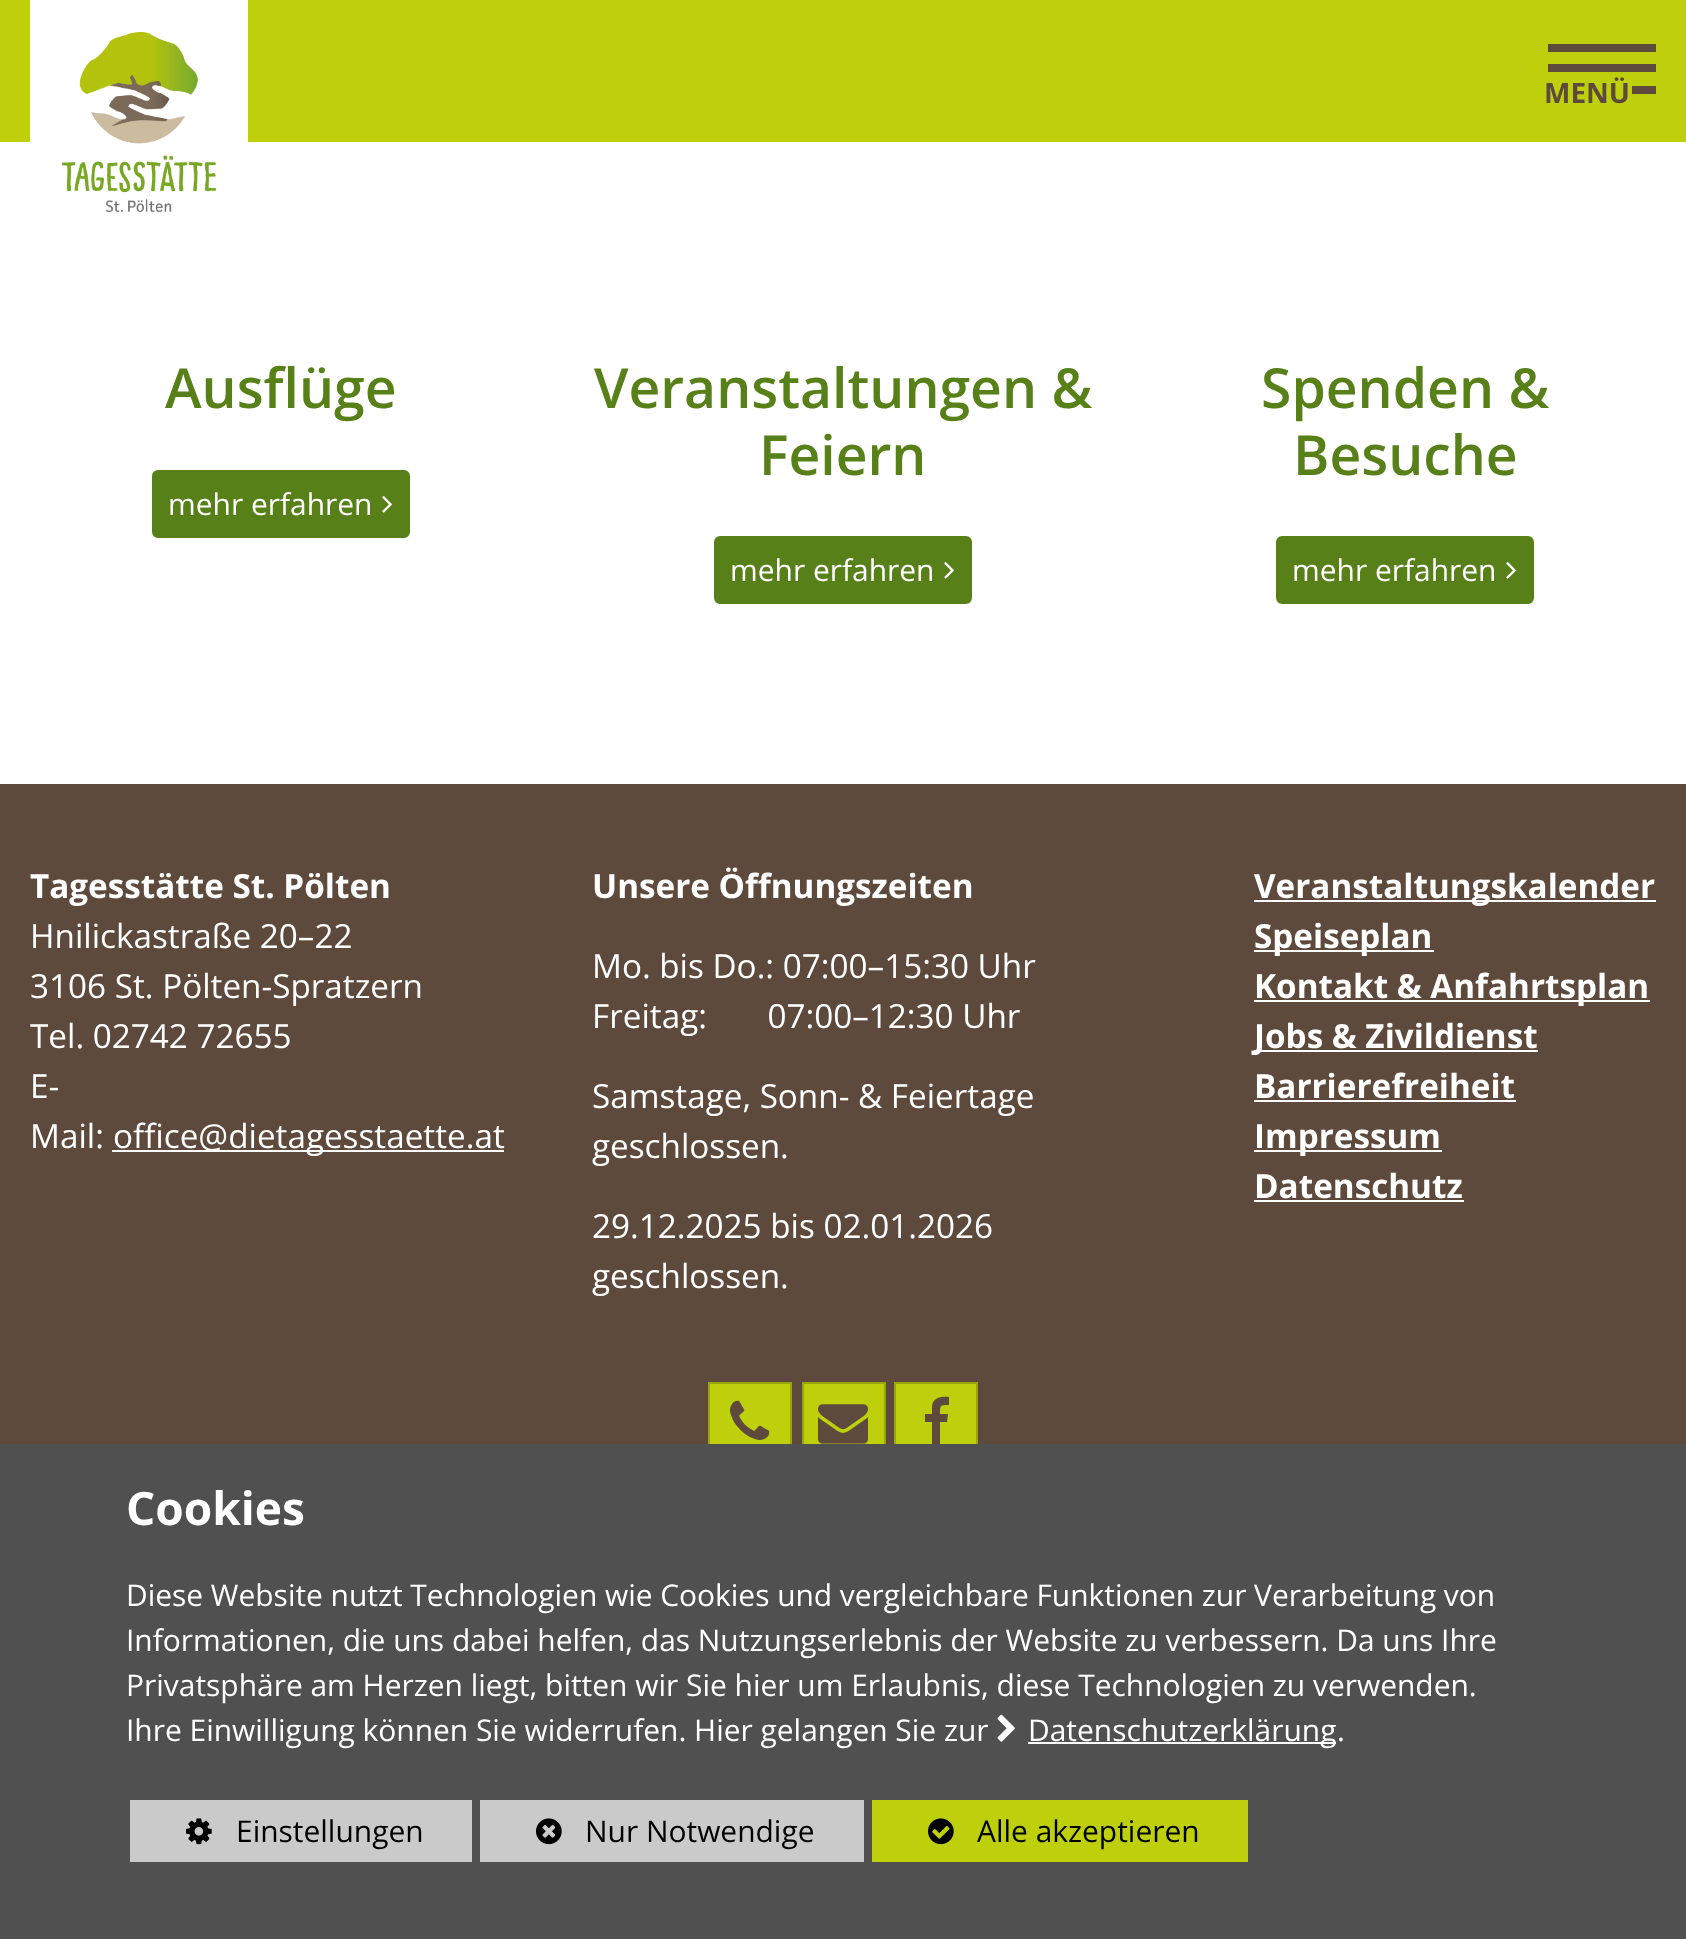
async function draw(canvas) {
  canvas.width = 1686;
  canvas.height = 1939;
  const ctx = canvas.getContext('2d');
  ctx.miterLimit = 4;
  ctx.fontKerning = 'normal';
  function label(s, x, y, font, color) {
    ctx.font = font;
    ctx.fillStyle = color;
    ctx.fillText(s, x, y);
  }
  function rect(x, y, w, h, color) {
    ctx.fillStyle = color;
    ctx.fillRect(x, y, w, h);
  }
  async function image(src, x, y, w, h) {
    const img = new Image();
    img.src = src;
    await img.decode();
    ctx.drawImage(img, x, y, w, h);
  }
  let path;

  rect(0, 0, 1686, 1939, '#fff');
  rect(0, 0, 1686, 142, '#bed00b');
  rect(30, 0, 218, 142, '#fff');
  await image('assets/img1.png', 62, 32, 154, 180);
  rect(1548, 44, 108, 8, '#5d4a3c');
  rect(1548, 64, 108, 8, '#5d4a3c');
  label('MENÜ', 1544, 103, 'bold 28px Open Sans', '#5d4a3c');
  rect(1632, 86, 24, 8, '#5d4a3c');
  label('Ausflüge', 165, 408, '600 55.25px Open Sans', '#588019');
  ctx.beginPath();
  ctx.roundRect(153, 471, 256, 66, 5);
  ctx.fill();
  ctx.strokeStyle = '#588019';
  ctx.lineWidth = 2;
  ctx.stroke();
  label('mehr erfahren', 168, 515, '29.95px Open Sans', '#fff');
  await image('assets/img2.png', 382, 496, 10, 17);
  label('Veranstaltungen &', 594, 408, '600 55.25px Open Sans', '#588019');
  label('Feiern', 759, 475, '600 55.25px Open Sans', '#588019');
  ctx.beginPath();
  ctx.roundRect(715, 537, 256, 66, 5);
  ctx.fill();
  ctx.stroke();
  label('mehr erfahren', 730, 581, '29.95px Open Sans', '#fff');
  await image('assets/img2.png', 944, 562, 10, 17);
  label('Spenden &', 1261, 408, '600 55.25px Open Sans', '#588019');
  label('Besuche', 1293, 475, '600 55.25px Open Sans', '#588019');
  ctx.beginPath();
  ctx.roundRect(1277, 537, 256, 66, 5);
  ctx.fill();
  ctx.stroke();
  label('mehr erfahren', 1292, 581, '29.95px Open Sans', '#fff');
  await image('assets/img2.png', 1506, 562, 10, 17);
  rect(0, 784, 1686, 660, '#5d4a3c');
  label('Tagesstätte St. Pölten', 30, 898, 'bold 33.25px Open Sans', '#fff');
  label('Hnilickastraße 20–22', 30, 948, '33.25px Open Sans', '#fff');
  label('3106 St. Pölten-Spratzern', 30, 998, '33.25px Open Sans', '#fff');
  label('Tel. 02742 72655', 30, 1048, '33.25px Open Sans', '#fff');
  label('E-', 30, 1098, '33.25px Open Sans', '#fff');
  label('Mail:', 30, 1148, '33.25px Open Sans', '#fff');
  rect(112, 1150, 392, 2, '#fff');
  label('office@dietagesstaette.at', 113, 1148, '33.25px Open Sans', '#fff');
  label('Unsere Öffnungszeiten', 592, 898, 'bold 33.25px Open Sans', '#fff');
  label('Mo. bis Do.: 07:00–15:30 Uhr', 592, 978, '33.25px Open Sans', '#fff');
  label('Freitag:       07:00–12:30 Uhr', 592, 1028, '33.25px Open Sans', '#fff');
  label('Samstage, Sonn- & Feiertage', 592, 1108, '33.25px Open Sans', '#fff');
  label('geschlossen.', 592, 1158, '33.25px Open Sans', '#fff');
  label('29.12.2025 bis 02.01.2026', 592, 1238, '33.25px Open Sans', '#fff');
  label('geschlossen.', 592, 1288, '33.25px Open Sans', '#fff');
  rect(1254, 900, 402, 2, '#fff');
  label('Veranstaltungskalender', 1254, 898, 'bold 33.25px Open Sans', '#fff');
  rect(1254, 950, 180, 2, '#fff');
  label('Speiseplan', 1254, 948, 'bold 33.25px Open Sans', '#fff');
  rect(1254, 1000, 396, 2, '#fff');
  label('Kontakt & Anfahrtsplan', 1254, 998, 'bold 33.25px Open Sans', '#fff');
  rect(1254, 1050, 284, 2, '#fff');
  label('Jobs & Zivildienst', 1254, 1048, 'bold 33.25px Open Sans', '#fff');
  label('Barrierefreiheit', 1254, 1098, 'bold 33.25px Open Sans', '#fff');
  rect(1254, 1100, 262, 2, '#fff');
  rect(1254, 1150, 188, 2, '#fff');
  label('Impressum', 1254, 1148, 'bold 33.25px Open Sans', '#fff');
  label('Datenschutz', 1254, 1198, 'bold 33.25px Open Sans', '#fff');
  rect(1254, 1200, 210, 2, '#fff');
  rect(710, 1384, 80, 60, '#bed00b');
  ctx.strokeStyle = '#98a609';
  ctx.strokeRect(709, 1383, 82, 78);
  await image('assets/img3.png', 730, 1400, 40, 40);
  rect(804, 1384, 80, 60, '#bed00b');
  ctx.strokeRect(803, 1383, 82, 78);
  await image('assets/img4.png', 818, 1404, 50, 40);
  rect(896, 1384, 80, 60, '#bed00b');
  ctx.strokeRect(895, 1383, 82, 78);
  ctx.fillStyle = '#5d4a3c';
  path = new Path2D('M949 1397V1405C940 1405 940 1405 940 1414H948L947 1422H940V1444H932V1422H925V1414H932V1406C933 1397 942 1396 949 1397Z');
  ctx.fill(path);
  rect(0, 1444, 1686, 495, '#505050');
  label('Cookies', 126, 1525, 'bold 46px Open Sans', '#fff');
  ctx.wordSpacing = '-0.1px';
  label('Diese Website nutzt Technologien wie Cookies und vergleichbare Funktionen zur Verarbeitung von', 126, 1606, '29.95px Open Sans', '#fff');
  ctx.wordSpacing = '0px';
  label('Informationen, die uns dabei helfen, das Nutzungserlebnis der Website zu verbessern. Da uns Ihre', 126, 1651, '29.95px Open Sans', '#fff');
  label('Privatsphäre am Herzen liegt, bitten wir Sie hier um Erlaubnis, diese Technologien zu verwenden.', 126, 1696, '29.95px Open Sans', '#fff');
  label('Ihre Einwilligung können Sie widerrufen. Hier gelangen Sie zur', 126, 1741, '29.95px Open Sans', '#fff');
  await image('assets/img5.png', 997, 1714, 18, 28);
  rect(1028, 1742, 308, 2, '#fff');
  label('Datenschutzerklärung', 1028, 1741, '29.95px Open Sans', '#fff');
  label('.', 1337, 1741, '29.95px Open Sans', '#fff');
  rect(130, 1800, 342, 62, '#cacaca');
  await image('assets/img6.png', 186, 1818, 26, 27);
  label('Einstellungen', 236, 1842, '29.95px Open Sans', '#000');
  rect(480, 1800, 384, 62, '#cacaca');
  await image('assets/img7.png', 536, 1818, 26, 27);
  label('Nur Notwendige', 585, 1842, '29.95px Open Sans', '#000');
  rect(872, 1800, 376, 62, '#bed00b');
  await image('assets/img8.png', 928, 1818, 26, 27);
  label('Alle akzeptieren', 977, 1842, '29.95px Open Sans', '#000');
}

draw(document.querySelector('canvas'));
